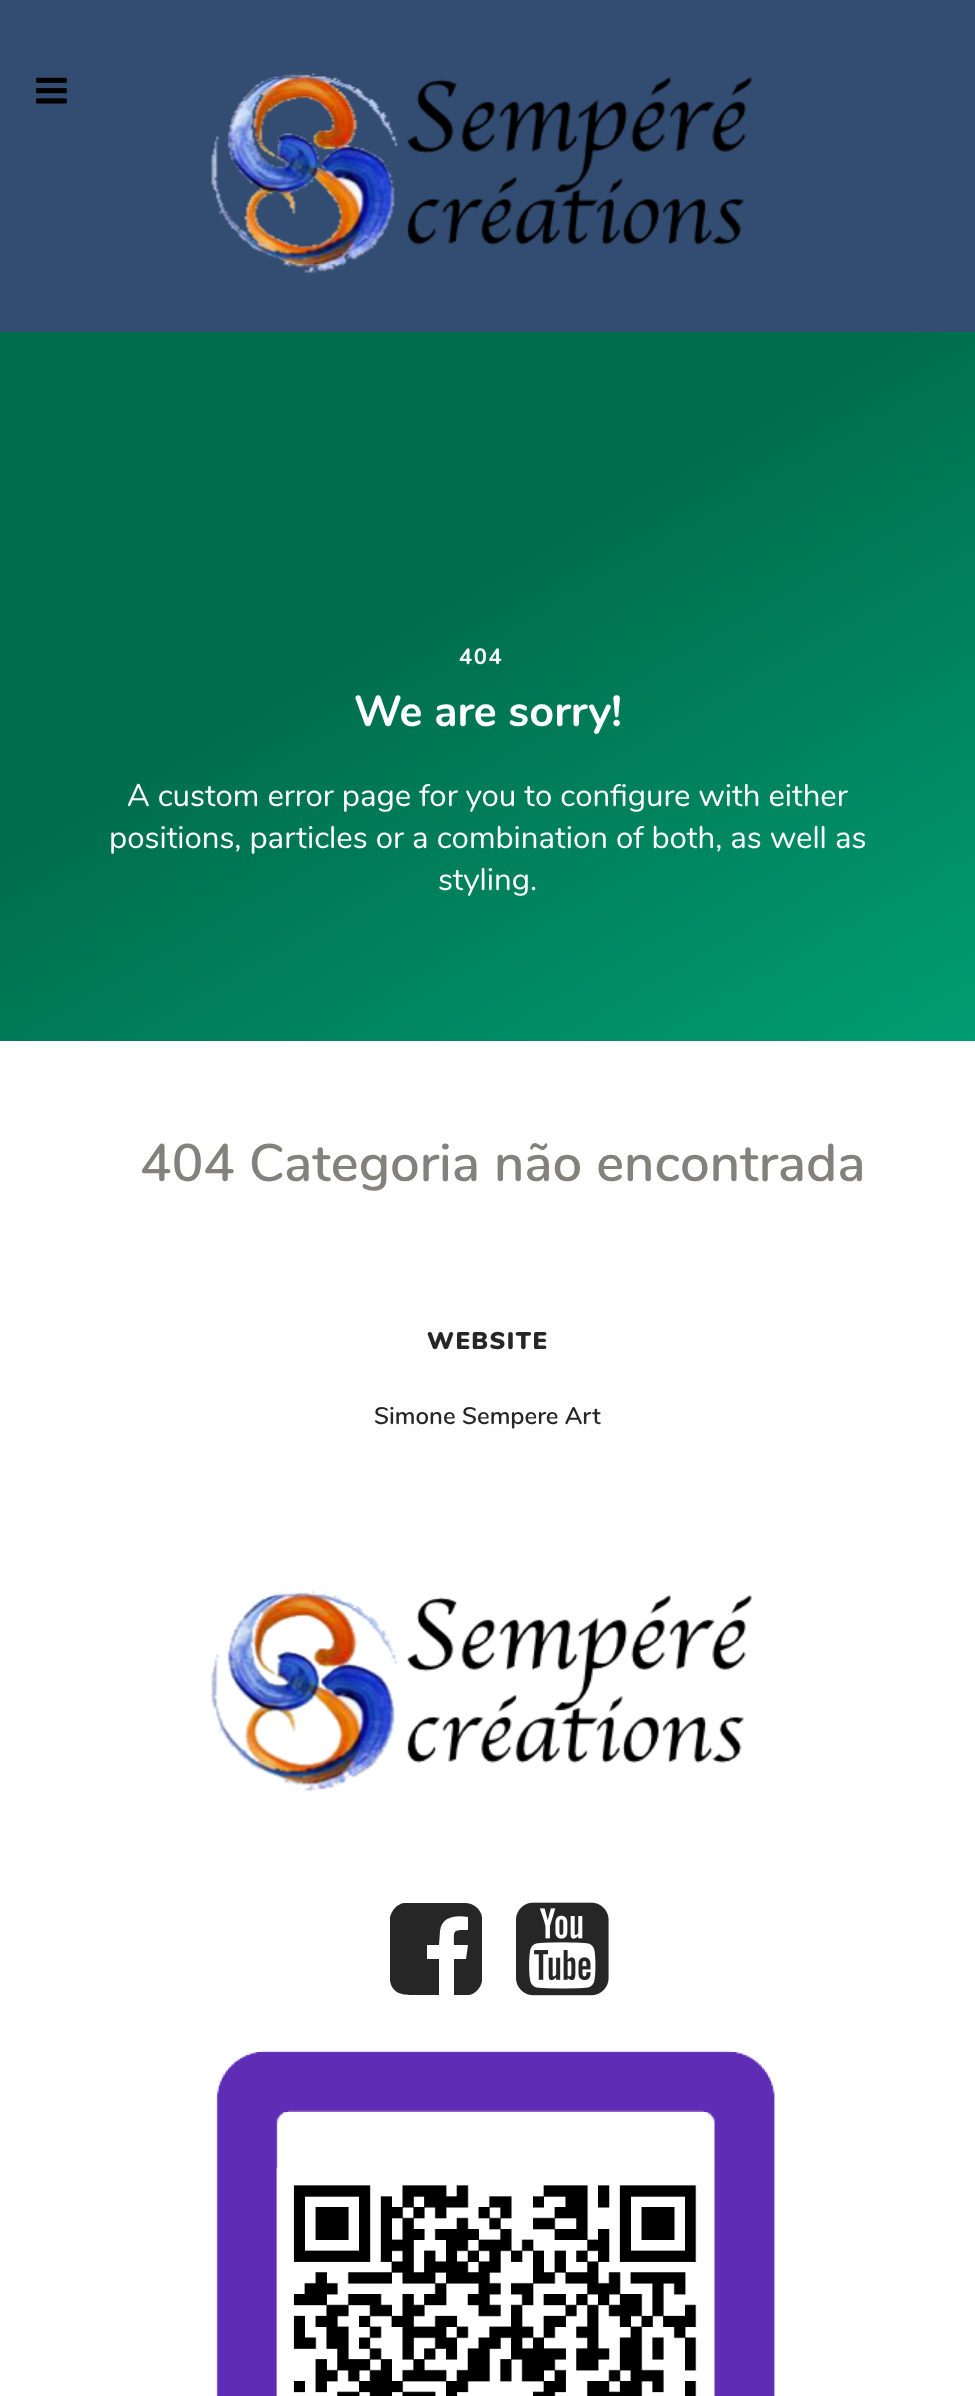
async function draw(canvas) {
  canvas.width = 975;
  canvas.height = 2396;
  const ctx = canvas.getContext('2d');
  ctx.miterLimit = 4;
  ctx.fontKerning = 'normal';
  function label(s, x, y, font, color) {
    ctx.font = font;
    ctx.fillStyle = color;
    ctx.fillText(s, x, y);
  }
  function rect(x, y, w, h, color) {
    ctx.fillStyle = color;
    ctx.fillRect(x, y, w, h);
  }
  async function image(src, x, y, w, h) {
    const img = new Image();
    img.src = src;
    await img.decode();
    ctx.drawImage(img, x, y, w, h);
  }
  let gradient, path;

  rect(0, 0, 975, 2396, '#334c71');
  await image('assets/img1.png', 36, 77, 31, 27);
  await image('assets/img2.png', 211, 72, 541, 202);
  gradient = ctx.createLinearGradient(763, 1163, 212, 209);
  gradient.addColorStop(0, '#009d71');
  gradient.addColorStop(0.6, '#006d4c');
  ctx.fillStyle = gradient;
  ctx.fillRect(0, 332, 975, 709);
  ctx.letterSpacing = '1.5px';
  label('404', 459, 664, 'bold 22px Nunito', '#fff');
  ctx.letterSpacing = '0px';
  label('We are sorry!', 354, 726, 'bold 43.25px Nunito', '#fff');
  label('A custom error page for you to configure with either', 127, 806, '31.2px Nunito', '#fff');
  label('positions, particles or a combination of both, as well as', 109, 848, '31.2px Nunito', '#fff');
  label('styling.', 438, 890, '31.2px Nunito', '#fff');
  rect(0, 1041, 975, 1355, '#fff');
  label('404 Categoria não encontrada', 140, 1181, '600 52.75px Nunito', '#82817c');
  ctx.letterSpacing = '1.5px';
  label('WEBSITE', 427, 1349, '900 24px Nunito', '#262626');
  ctx.letterSpacing = '0px';
  label('Simone Sempere Art', 374, 1424, '600 24px Nunito', '#262626');
  await image('assets/img3.png', 211, 1590, 541, 202);
  path = new Path2D('M465 1903C473 1903 481 1909 482 1917V1981C481 1988 475 1994 469 1995H454V1959H466L468 1945H454C454 1930 452 1930 468 1930V1917C456 1915 442 1916 440 1931L439 1945H427V1959H439V1995H418C406 1995 393 1996 390 1981V1917C392 1910 397 1904 404 1903Z');
  ctx.fill(path);
  await image('assets/img4.png', 516, 1902, 93, 94);
  await image('assets/img5.png', 216, 2050, 560, 346);
}

draw(document.querySelector('canvas'));
